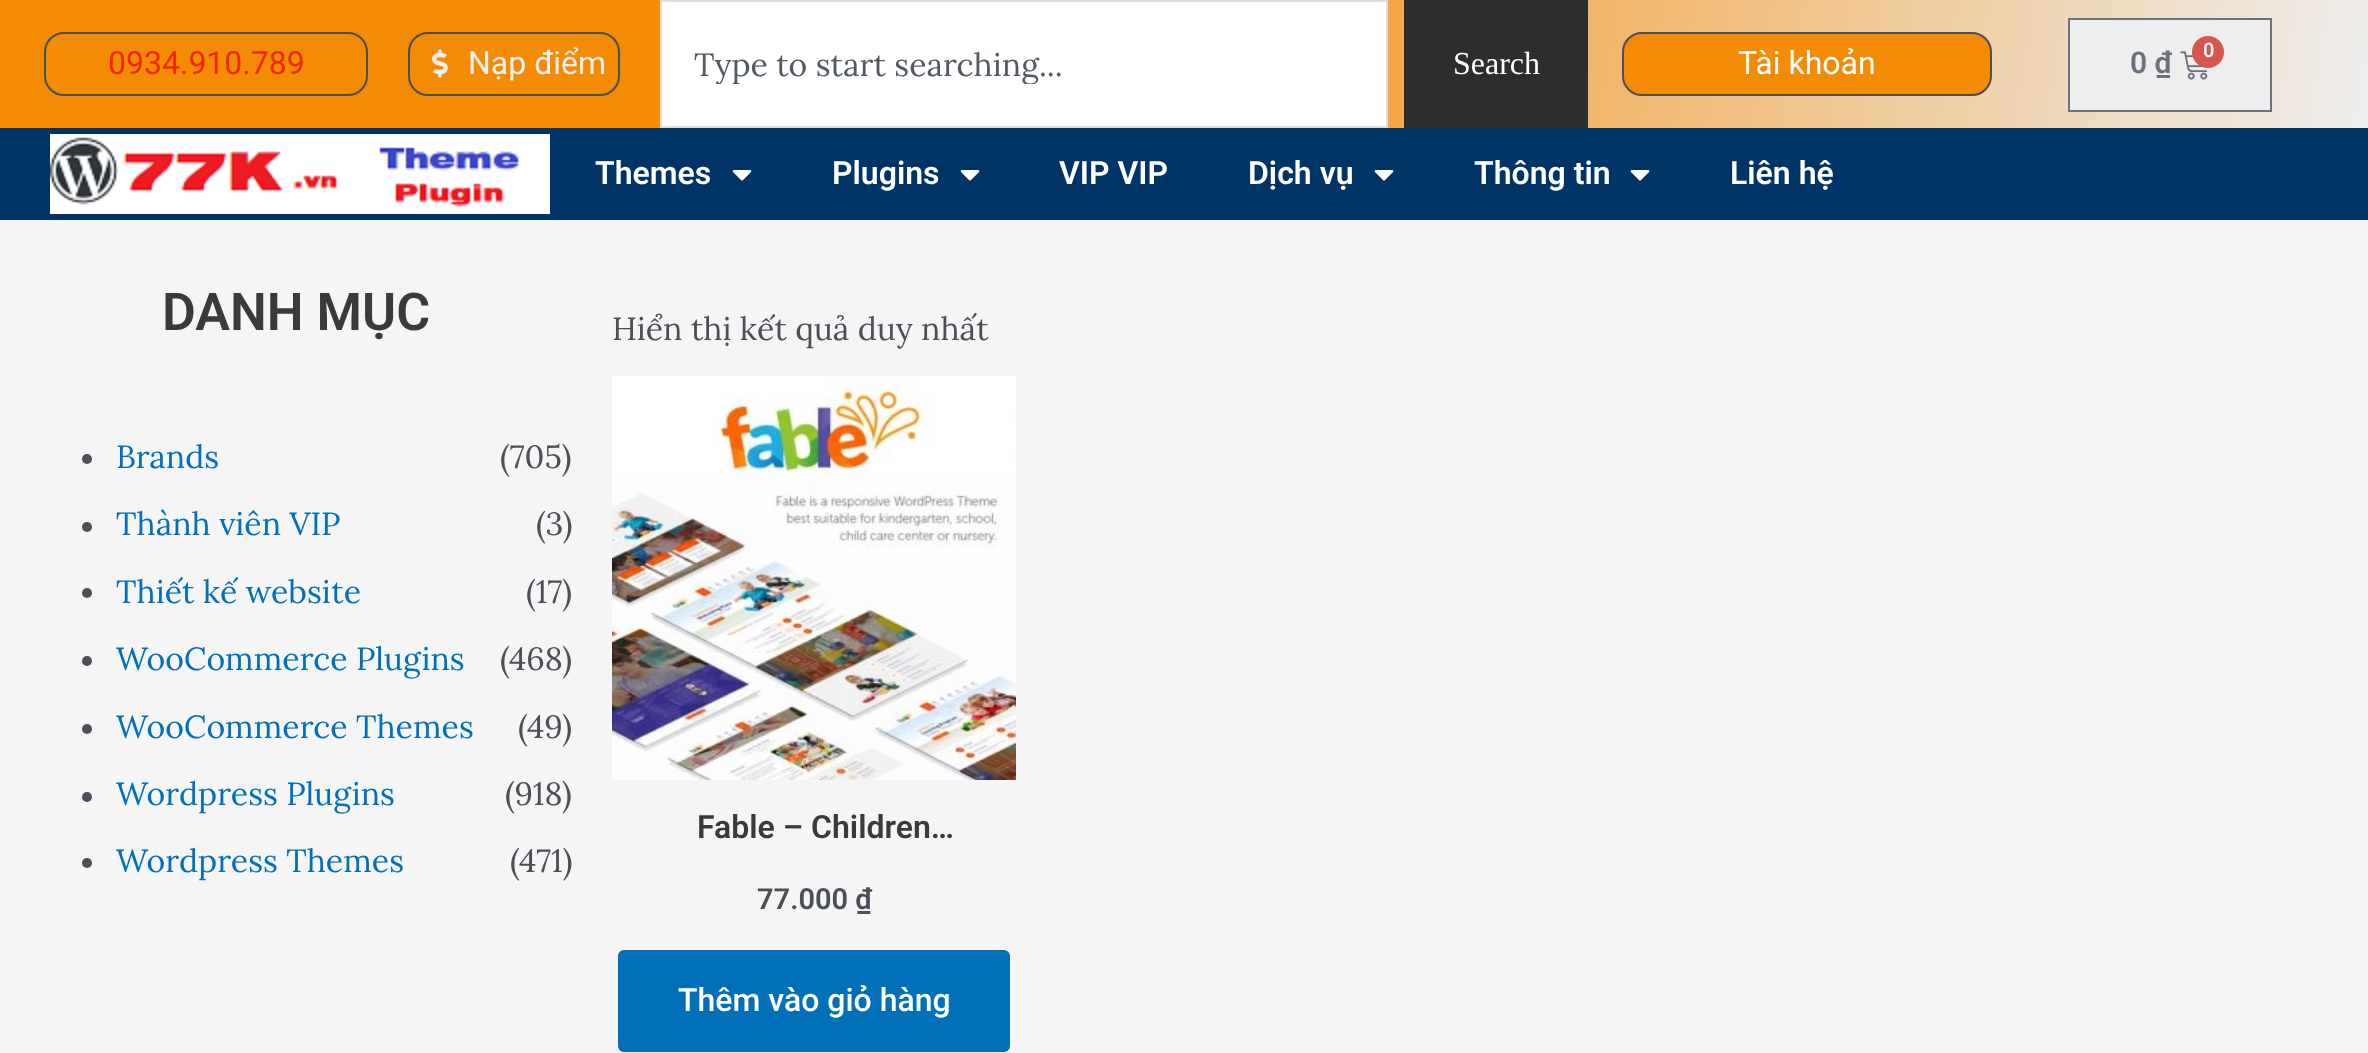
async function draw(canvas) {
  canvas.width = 2368;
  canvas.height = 1053;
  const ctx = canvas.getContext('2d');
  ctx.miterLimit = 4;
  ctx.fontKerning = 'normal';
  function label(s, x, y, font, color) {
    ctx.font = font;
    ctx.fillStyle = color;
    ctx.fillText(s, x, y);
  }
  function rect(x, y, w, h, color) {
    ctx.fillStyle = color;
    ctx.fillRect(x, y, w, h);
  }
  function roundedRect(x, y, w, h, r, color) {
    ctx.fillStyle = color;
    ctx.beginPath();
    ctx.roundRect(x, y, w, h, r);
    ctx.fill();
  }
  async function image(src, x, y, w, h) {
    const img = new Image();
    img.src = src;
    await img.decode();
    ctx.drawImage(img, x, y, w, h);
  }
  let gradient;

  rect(0, 0, 2368, 1053, '#f5f5f5');
  gradient = ctx.createLinearGradient(25, -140, 2343, 268);
  gradient.addColorStop(0.42, '#f48b05');
  gradient.addColorStop(1, '#eee');
  ctx.fillStyle = gradient;
  ctx.fillRect(0, 0, 2368, 128);
  ctx.beginPath();
  ctx.roundRect(45, 33, 322, 62, 19);
  ctx.strokeStyle = '#4b4f58';
  ctx.lineWidth = 2;
  ctx.stroke();
  label('0934.910.789', 108, 74, '32px Roboto', '#f02900');
  ctx.beginPath();
  ctx.roundRect(409, 33, 210, 62, 19);
  ctx.stroke();
  await image('assets/img1.png', 432, 49, 16, 29);
  label('Nạp điểm', 468, 74, '32px Roboto', '#eee');
  ctx.fillStyle = '#fff';
  ctx.beginPath();
  ctx.rect(661, 1, 726, 126);
  ctx.fill();
  ctx.strokeStyle = '#ddd';
  ctx.stroke();
  ctx.save();
  ctx.beginPath();
  ctx.rect(694, 44, 636, 40);
  ctx.clip();
  label('Type to start searching...', 694, 76, '32px Lora', '#515962');
  ctx.restore();
  rect(1404, 0, 184, 128, '#2d2d2d');
  label('Search', 1453, 74, '32px Liberation Serif', '#fff');
  ctx.fillStyle = '#f48b05';
  ctx.beginPath();
  ctx.roundRect(1623, 33, 368, 62, 19);
  ctx.fill();
  ctx.strokeStyle = '#4b4f58';
  ctx.stroke();
  label('Tài khoản', 1738, 74, '32px Roboto', '#fff');
  ctx.fillStyle = '#eee';
  ctx.beginPath();
  ctx.rect(2069, 19, 202, 92);
  ctx.fill();
  ctx.strokeStyle = '#69727d';
  ctx.stroke();
  label('0 ₫', 2130, 73, '600 30px Roboto', '#69727d');
  await image('assets/img2.png', 2180, 51, 28, 29);
  ctx.fillStyle = '#d9534f';
  ctx.beginPath();
  ctx.arc(2208, 52, 16, 0, 2 * Math.PI);
  ctx.fill();
  label('0', 2203, 57, '600 20px Roboto', '#fff');
  rect(0, 128, 2368, 92, '#036');
  await image('assets/img3.png', 50, 134, 500, 80);
  label('Themes', 595, 184, '600 32px Roboto', '#fff');
  await image('assets/img4.png', 732, 170, 20, 11);
  label('Plugins', 832, 184, '600 32px Roboto', '#fff');
  await image('assets/img4.png', 960, 170, 20, 11);
  label('VIP VIP', 1059, 184, '600 32px Roboto', '#fff');
  label('Dịch vụ', 1248, 184, '600 32px Roboto', '#fff');
  await image('assets/img4.png', 1374, 170, 20, 11);
  label('Thông tin', 1474, 184, '600 32px Roboto', '#fff');
  await image('assets/img4.png', 1630, 170, 20, 11);
  label('Liên hệ', 1730, 184, '600 32px Roboto', '#fff');
  label('DANH MỤC', 162, 330, '600 52px Roboto', '#3a3a3a');
  ctx.fillStyle = '#4b4f58';
  ctx.beginPath();
  ctx.arc(87, 459, 5, 0, 2 * Math.PI);
  ctx.fill();
  label('Brands', 116, 468, '32px Lora', '#0170b9');
  label('(705)', 500, 468, '32px Lora', '#4b4f58');
  ctx.beginPath();
  ctx.arc(87, 527, 5, 0, 2 * Math.PI);
  ctx.fill();
  label('Thành viên VIP', 116, 535, '32px Lora', '#0170b9');
  label('(3)', 536, 535, '32px Lora', '#4b4f58');
  ctx.beginPath();
  ctx.arc(87, 593, 5, 0, 2 * Math.PI);
  ctx.fill();
  label('Thiết kế website', 116, 603, '32px Lora', '#0170b9');
  label('(17)', 526, 603, '32px Lora', '#4b4f58');
  ctx.beginPath();
  ctx.arc(87, 661, 5, 0, 2 * Math.PI);
  ctx.fill();
  label('WooCommerce Plugins', 116, 670, '32px Lora', '#0170b9');
  label('(468)', 500, 670, '32px Lora', '#4b4f58');
  ctx.beginPath();
  ctx.arc(87, 729, 5, 0, 2 * Math.PI);
  ctx.fill();
  label('WooCommerce Themes', 116, 738, '32px Lora', '#0170b9');
  label('(49)', 518, 738, '32px Lora', '#4b4f58');
  ctx.beginPath();
  ctx.arc(87, 797, 5, 0, 2 * Math.PI);
  ctx.fill();
  label('Wordpress Plugins', 116, 805, '32px Lora', '#0170b9');
  label('(918)', 505, 805, '32px Lora', '#4b4f58');
  ctx.beginPath();
  ctx.arc(87, 863, 5, 0, 2 * Math.PI);
  ctx.fill();
  label('Wordpress Themes', 116, 872, '32px Lora', '#0170b9');
  label('(471)', 510, 872, '32px Lora', '#4b4f58');
  label('Hiển thị kết quả duy nhất', 612, 340, '32px Lora', '#4b4f58');
  await image('assets/img5.png', 612, 376, 404, 404);
  label('Fable – Children…', 697, 838, '600 32px Roboto', '#3a3a3a');
  label('77.000 ₫', 757, 909, '600 29px Roboto', '#4b4f58');
  roundedRect(618, 950, 392, 102, 6, '#0170b9');
  label('Thêm vào giỏ hàng', 678, 1011, '500 32px Roboto', '#fff');
}

draw(document.querySelector('canvas'));
